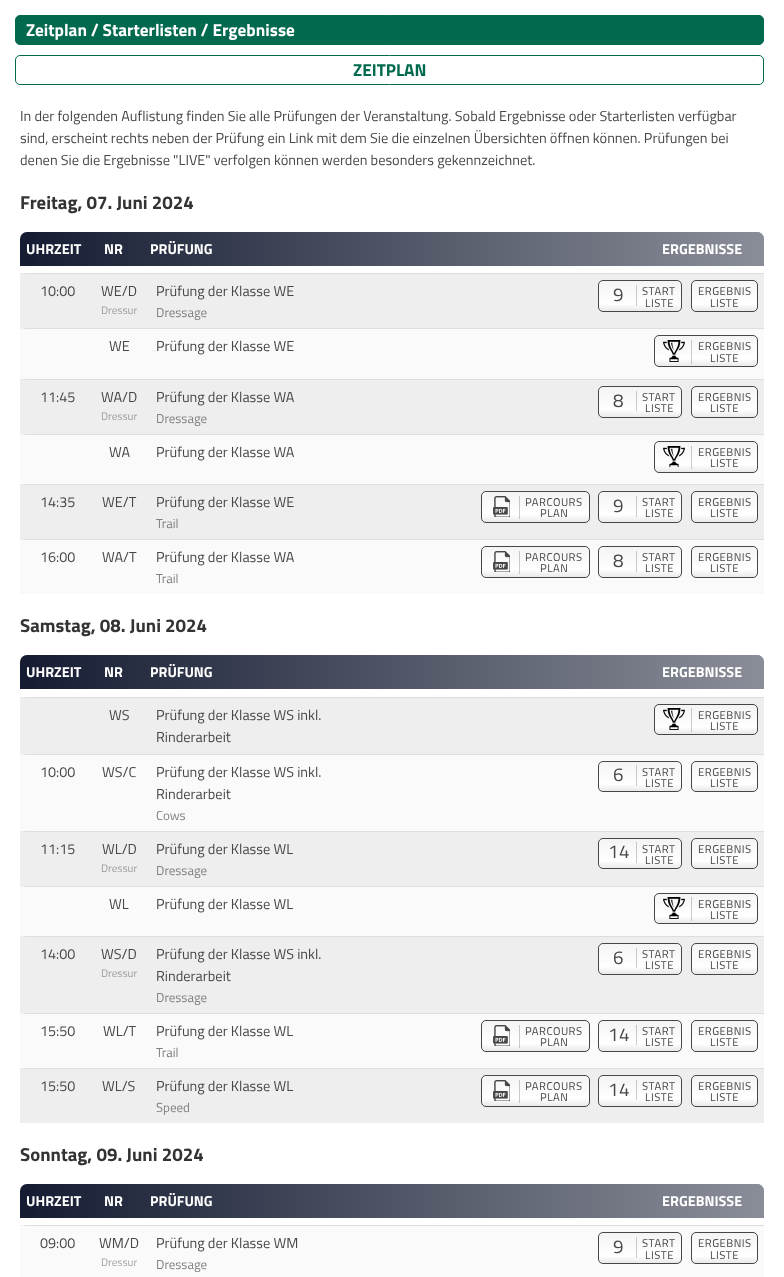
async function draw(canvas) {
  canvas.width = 784;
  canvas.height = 1277;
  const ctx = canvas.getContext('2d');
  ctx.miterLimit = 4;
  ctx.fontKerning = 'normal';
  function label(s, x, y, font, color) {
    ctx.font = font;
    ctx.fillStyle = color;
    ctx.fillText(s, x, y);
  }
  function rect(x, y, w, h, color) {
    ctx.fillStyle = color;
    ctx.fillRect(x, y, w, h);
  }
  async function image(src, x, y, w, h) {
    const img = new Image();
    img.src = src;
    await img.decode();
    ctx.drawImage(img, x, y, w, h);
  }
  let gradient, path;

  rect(0, 0, 784, 1277, '#fff');
  ctx.fillStyle = '#01694e';
  ctx.beginPath();
  ctx.roundRect(15.5, 15.5, 748, 29, 4.5);
  ctx.fill();
  ctx.strokeStyle = '#01694e';
  ctx.stroke();
  label('Zeitplan / Starterlisten / Ergebnisse', 26, 36, 'bold 17.25px Titillium Web', '#fff');
  ctx.beginPath();
  ctx.roundRect(15.5, 55.5, 748, 29, 4.5);
  ctx.stroke();
  label('ZEITPLAN', 353, 76, 'bold 17.25px Titillium Web', '#01694e');
  label('In der folgenden Auflistung finden Sie alle Prüfungen der Veranstaltung. Sobald Ergebnisse oder Starterlisten verfügbar', 20, 121, '14.4px Titillium Web', '#474747');
  label('sind, erscheint rechts neben der Prüfung ein Link mit dem Sie die einzelnen Übersichten öffnen können. Prüfungen bei', 20, 143, '14.4px Titillium Web', '#474747');
  label('denen Sie die Ergebnisse "LIVE" verfolgen können werden besonders gekennzeichnet.', 20, 165, '14.4px Titillium Web', '#474747');
  label('Freitag, 07. Juni 2024', 20, 209, 'bold 18.75px Titillium Web', '#333');
  ctx.fillStyle = '#151c32';
  ctx.beginPath();
  ctx.roundRect(20, 232, 744, 34, [7, 7, 0, 0]);
  ctx.fill();
  gradient = ctx.createLinearGradient(20, 249, 764, 249);
  gradient.addColorStop(0, '#ffffff00');
  gradient.addColorStop(1, '#ffffff80');
  ctx.fillStyle = gradient;
  ctx.beginPath();
  ctx.roundRect(20, 232, 744, 34, [7, 7, 0, 0]);
  ctx.fill();
  label('UHRZEIT', 26, 254, 'bold 14.4px Titillium Web', '#fff');
  label('NR', 104, 254, 'bold 14.4px Titillium Web', '#fff');
  label('PRÜFUNG', 150, 254, 'bold 14.4px Titillium Web', '#fff');
  label('ERGEBNISSE', 662, 254, 'bold 14.4px Titillium Web', '#fff');
  rect(20, 273, 744, 55, '#eee');
  ctx.fillStyle = '#ddd';
  path = new Path2D('M20 273H764V274H27Z');
  ctx.fill(path);
  label('10:00', 40, 296, '14.4px Titillium Web', '#474747');
  label('WE/D', 101, 296, '14.4px Titillium Web', '#474747');
  label('Dressur', 101, 314, '11px Titillium Web', '#9b9b9b');
  label('Prüfung der Klasse WE', 156, 296, '14.4px Titillium Web', '#474747');
  label('Dressage', 156, 317, '13px Titillium Web', '#808080');
  ctx.save();
  ctx.beginPath();
  ctx.roundRect(598, 280, 84, 32, 5);
  ctx.clip();
  gradient = ctx.createLinearGradient(640, 311, 640, 281);
  gradient.addColorStop(0, '#e9e9e9');
  gradient.addColorStop(0.25, '#fff');
  gradient.addColorStop(0.5, '#fbfbfb');
  gradient.addColorStop(0.75, '#f8f8f8');
  gradient.addColorStop(1, '#f4f4f4');
  ctx.fillStyle = gradient;
  ctx.fillRect(598, 281, 84, 30);
  ctx.restore();
  gradient = ctx.createLinearGradient(640, 311, 640, 281);
  gradient.addColorStop(0, '#bababa');
  gradient.addColorStop(0.25, '#ccc');
  gradient.addColorStop(0.5, '#c9c9c9');
  gradient.addColorStop(0.75, '#c6c6c6');
  gradient.addColorStop(1, '#c3c3c3');
  ctx.fillStyle = gradient;
  ctx.fillRect(636, 285, 1, 21);
  ctx.beginPath();
  ctx.roundRect(598.5, 280.5, 83, 31, 4.5);
  ctx.strokeStyle = '#474747';
  ctx.stroke();
  ctx.letterSpacing = '0.5px';
  label('9', 613, 301, '18.75px Titillium Web', '#474747');
  label('START', 642, 295, '11.25px Titillium Web', '#474747');
  label('LISTE', 645, 307, '11.25px Titillium Web', '#474747');
  ctx.save();
  ctx.beginPath();
  ctx.roundRect(691, 280, 67, 32, 5);
  ctx.clip();
  gradient = ctx.createLinearGradient(725, 311, 725, 281);
  gradient.addColorStop(0, '#e9e9e9');
  gradient.addColorStop(0.25, '#fff');
  gradient.addColorStop(0.5, '#fbfbfb');
  gradient.addColorStop(0.75, '#f8f8f8');
  gradient.addColorStop(1, '#f4f4f4');
  ctx.fillStyle = gradient;
  ctx.fillRect(691, 281, 67, 30);
  ctx.restore();
  ctx.beginPath();
  ctx.roundRect(691.5, 280.5, 66, 31, 4.5);
  ctx.stroke();
  label('ERGEBNIS', 698, 295, '11.25px Titillium Web', '#474747');
  label('LISTE', 710, 307, '11.25px Titillium Web', '#474747');
  rect(20, 328, 744, 51, '#fafafa');
  ctx.fillStyle = '#ddd';
  path = new Path2D('M20 328H764V329H27Z');
  ctx.fill(path);
  ctx.letterSpacing = '0px';
  label('WE', 109, 351, '14.4px Titillium Web', '#474747');
  label('Prüfung der Klasse WE', 156, 351, '14.4px Titillium Web', '#474747');
  ctx.save();
  ctx.beginPath();
  ctx.roundRect(654, 335, 104, 32, 5);
  ctx.clip();
  gradient = ctx.createLinearGradient(706, 366, 706, 336);
  gradient.addColorStop(0, '#e9e9e9');
  gradient.addColorStop(0.25, '#fff');
  gradient.addColorStop(0.5, '#fbfbfb');
  gradient.addColorStop(0.75, '#f8f8f8');
  gradient.addColorStop(1, '#f4f4f4');
  ctx.fillStyle = gradient;
  ctx.fillRect(654, 336, 104, 30);
  ctx.restore();
  gradient = ctx.createLinearGradient(706, 366, 706, 336);
  gradient.addColorStop(0, '#bababa');
  gradient.addColorStop(0.25, '#ccc');
  gradient.addColorStop(0.5, '#c9c9c9');
  gradient.addColorStop(0.75, '#c6c6c6');
  gradient.addColorStop(1, '#c3c3c3');
  ctx.fillStyle = gradient;
  ctx.fillRect(691, 340, 1, 24);
  ctx.beginPath();
  ctx.roundRect(654.5, 335.5, 103, 31, 4.5);
  ctx.stroke();
  await image('assets/img1.png', 663, 340, 22, 22);
  ctx.letterSpacing = '0.5px';
  label('ERGEBNIS', 698, 350, '11.25px Titillium Web', '#474747');
  label('LISTE', 710, 362, '11.25px Titillium Web', '#474747');
  rect(20, 379, 744, 55, '#eee');
  ctx.fillStyle = '#ddd';
  path = new Path2D('M20 379H764V380H27Z');
  ctx.fill(path);
  ctx.letterSpacing = '0px';
  label('11:45', 40, 402, '14.4px Titillium Web', '#474747');
  label('WA/D', 101, 402, '14.4px Titillium Web', '#474747');
  label('Dressur', 101, 420, '11px Titillium Web', '#9b9b9b');
  label('Prüfung der Klasse WA', 156, 402, '14.4px Titillium Web', '#474747');
  label('Dressage', 156, 423, '13px Titillium Web', '#808080');
  ctx.save();
  ctx.beginPath();
  ctx.roundRect(598, 386, 84, 32, 5);
  ctx.clip();
  gradient = ctx.createLinearGradient(640, 417, 640, 387);
  gradient.addColorStop(0, '#e9e9e9');
  gradient.addColorStop(0.25, '#fff');
  gradient.addColorStop(0.5, '#fbfbfb');
  gradient.addColorStop(0.75, '#f8f8f8');
  gradient.addColorStop(1, '#f4f4f4');
  ctx.fillStyle = gradient;
  ctx.fillRect(598, 387, 84, 30);
  ctx.restore();
  gradient = ctx.createLinearGradient(640, 417, 640, 387);
  gradient.addColorStop(0, '#bababa');
  gradient.addColorStop(0.25, '#ccc');
  gradient.addColorStop(0.5, '#c9c9c9');
  gradient.addColorStop(0.75, '#c6c6c6');
  gradient.addColorStop(1, '#c3c3c3');
  ctx.fillStyle = gradient;
  ctx.fillRect(636, 391, 1, 20);
  ctx.beginPath();
  ctx.roundRect(598.5, 386.5, 83, 31, 4.5);
  ctx.stroke();
  ctx.letterSpacing = '0.5px';
  label('8', 613, 407, '18.75px Titillium Web', '#474747');
  label('START', 642, 401, '11.25px Titillium Web', '#474747');
  label('LISTE', 645, 412, '11.25px Titillium Web', '#474747');
  ctx.save();
  ctx.beginPath();
  ctx.roundRect(691, 386, 67, 32, 5);
  ctx.clip();
  gradient = ctx.createLinearGradient(725, 417, 725, 387);
  gradient.addColorStop(0, '#e9e9e9');
  gradient.addColorStop(0.25, '#fff');
  gradient.addColorStop(0.5, '#fbfbfb');
  gradient.addColorStop(0.75, '#f8f8f8');
  gradient.addColorStop(1, '#f4f4f4');
  ctx.fillStyle = gradient;
  ctx.fillRect(691, 387, 67, 30);
  ctx.restore();
  ctx.beginPath();
  ctx.roundRect(691.5, 386.5, 66, 31, 4.5);
  ctx.stroke();
  label('ERGEBNIS', 698, 401, '11.25px Titillium Web', '#474747');
  label('LISTE', 710, 412, '11.25px Titillium Web', '#474747');
  rect(20, 434, 744, 50, '#fafafa');
  ctx.fillStyle = '#ddd';
  path = new Path2D('M20 434H764V435H27Z');
  ctx.fill(path);
  ctx.letterSpacing = '0px';
  label('WA', 109, 457, '14.4px Titillium Web', '#474747');
  label('Prüfung der Klasse WA', 156, 457, '14.4px Titillium Web', '#474747');
  ctx.save();
  ctx.beginPath();
  ctx.roundRect(654, 441, 104, 32, 5);
  ctx.clip();
  gradient = ctx.createLinearGradient(706, 472, 706, 442);
  gradient.addColorStop(0, '#e9e9e9');
  gradient.addColorStop(0.25, '#fff');
  gradient.addColorStop(0.5, '#fbfbfb');
  gradient.addColorStop(0.75, '#f8f8f8');
  gradient.addColorStop(1, '#f4f4f4');
  ctx.fillStyle = gradient;
  ctx.fillRect(654, 442, 104, 30);
  ctx.restore();
  gradient = ctx.createLinearGradient(706, 472, 706, 442);
  gradient.addColorStop(0, '#bababa');
  gradient.addColorStop(0.25, '#ccc');
  gradient.addColorStop(0.5, '#c9c9c9');
  gradient.addColorStop(0.75, '#c6c6c6');
  gradient.addColorStop(1, '#c3c3c3');
  ctx.fillStyle = gradient;
  ctx.fillRect(691, 446, 1, 23);
  ctx.beginPath();
  ctx.roundRect(654.5, 441.5, 103, 31, 4.5);
  ctx.stroke();
  await image('assets/img2.png', 663, 446, 22, 21);
  ctx.letterSpacing = '0.5px';
  label('ERGEBNIS', 698, 456, '11.25px Titillium Web', '#474747');
  label('LISTE', 710, 467, '11.25px Titillium Web', '#474747');
  rect(20, 484, 744, 55, '#eee');
  ctx.fillStyle = '#ddd';
  path = new Path2D('M20 484H764V485H27Z');
  ctx.fill(path);
  ctx.letterSpacing = '0px';
  label('14:35', 40, 507, '14.4px Titillium Web', '#474747');
  label('WE/T', 102, 507, '14.4px Titillium Web', '#474747');
  label('Prüfung der Klasse WE', 156, 507, '14.4px Titillium Web', '#474747');
  label('Trail', 156, 528, '13px Titillium Web', '#808080');
  ctx.save();
  ctx.beginPath();
  ctx.roundRect(481, 491, 109, 32, 5);
  ctx.clip();
  gradient = ctx.createLinearGradient(536, 522, 536, 492);
  gradient.addColorStop(0, '#e9e9e9');
  gradient.addColorStop(0.25, '#fff');
  gradient.addColorStop(0.5, '#fbfbfb');
  gradient.addColorStop(0.75, '#f8f8f8');
  gradient.addColorStop(1, '#f4f4f4');
  ctx.fillStyle = gradient;
  ctx.fillRect(481, 492, 109, 30);
  ctx.restore();
  gradient = ctx.createLinearGradient(536, 522, 536, 492);
  gradient.addColorStop(0, '#bababa');
  gradient.addColorStop(0.25, '#ccc');
  gradient.addColorStop(0.5, '#c9c9c9');
  gradient.addColorStop(0.75, '#c6c6c6');
  gradient.addColorStop(1, '#c3c3c3');
  ctx.fillStyle = gradient;
  ctx.fillRect(519, 496, 1, 23);
  ctx.beginPath();
  ctx.roundRect(481.5, 491.5, 108, 31, 4.5);
  ctx.stroke();
  await image('assets/img3.png', 493, 496, 17, 21);
  ctx.letterSpacing = '0.5px';
  label('PARCOURS', 525, 506, '11.25px Titillium Web', '#474747');
  label('PLAN', 540, 517, '11.25px Titillium Web', '#474747');
  ctx.save();
  ctx.beginPath();
  ctx.roundRect(598, 491, 84, 32, 5);
  ctx.clip();
  gradient = ctx.createLinearGradient(640, 522, 640, 492);
  gradient.addColorStop(0, '#e9e9e9');
  gradient.addColorStop(0.25, '#fff');
  gradient.addColorStop(0.5, '#fbfbfb');
  gradient.addColorStop(0.75, '#f8f8f8');
  gradient.addColorStop(1, '#f4f4f4');
  ctx.fillStyle = gradient;
  ctx.fillRect(598, 492, 84, 30);
  ctx.restore();
  gradient = ctx.createLinearGradient(640, 522, 640, 492);
  gradient.addColorStop(0, '#bababa');
  gradient.addColorStop(0.25, '#ccc');
  gradient.addColorStop(0.5, '#c9c9c9');
  gradient.addColorStop(0.75, '#c6c6c6');
  gradient.addColorStop(1, '#c3c3c3');
  ctx.fillStyle = gradient;
  ctx.fillRect(636, 496, 1, 21);
  ctx.beginPath();
  ctx.roundRect(598.5, 491.5, 83, 31, 4.5);
  ctx.stroke();
  label('9', 613, 512, '18.75px Titillium Web', '#474747');
  label('START', 642, 506, '11.25px Titillium Web', '#474747');
  label('LISTE', 645, 517, '11.25px Titillium Web', '#474747');
  ctx.save();
  ctx.beginPath();
  ctx.roundRect(691, 491, 67, 32, 5);
  ctx.clip();
  gradient = ctx.createLinearGradient(725, 522, 725, 492);
  gradient.addColorStop(0, '#e9e9e9');
  gradient.addColorStop(0.25, '#fff');
  gradient.addColorStop(0.5, '#fbfbfb');
  gradient.addColorStop(0.75, '#f8f8f8');
  gradient.addColorStop(1, '#f4f4f4');
  ctx.fillStyle = gradient;
  ctx.fillRect(691, 492, 67, 30);
  ctx.restore();
  ctx.beginPath();
  ctx.roundRect(691.5, 491.5, 66, 31, 4.5);
  ctx.stroke();
  label('ERGEBNIS', 698, 506, '11.25px Titillium Web', '#474747');
  label('LISTE', 710, 517, '11.25px Titillium Web', '#474747');
  rect(20, 539, 744, 55, '#fafafa');
  ctx.fillStyle = '#ddd';
  path = new Path2D('M20 539H764V540H27Z');
  ctx.fill(path);
  ctx.letterSpacing = '0px';
  label('16:00', 40, 562, '14.4px Titillium Web', '#474747');
  label('WA/T', 102, 562, '14.4px Titillium Web', '#474747');
  label('Prüfung der Klasse WA', 156, 562, '14.4px Titillium Web', '#474747');
  label('Trail', 156, 583, '13px Titillium Web', '#808080');
  ctx.save();
  ctx.beginPath();
  ctx.roundRect(481, 546, 109, 32, 5);
  ctx.clip();
  gradient = ctx.createLinearGradient(536, 577, 536, 547);
  gradient.addColorStop(0, '#e9e9e9');
  gradient.addColorStop(0.25, '#fff');
  gradient.addColorStop(0.5, '#fbfbfb');
  gradient.addColorStop(0.75, '#f8f8f8');
  gradient.addColorStop(1, '#f4f4f4');
  ctx.fillStyle = gradient;
  ctx.fillRect(481, 547, 109, 30);
  ctx.restore();
  gradient = ctx.createLinearGradient(536, 577, 536, 547);
  gradient.addColorStop(0, '#bababa');
  gradient.addColorStop(0.25, '#ccc');
  gradient.addColorStop(0.5, '#c9c9c9');
  gradient.addColorStop(0.75, '#c6c6c6');
  gradient.addColorStop(1, '#c3c3c3');
  ctx.fillStyle = gradient;
  ctx.fillRect(519, 551, 1, 23);
  ctx.beginPath();
  ctx.roundRect(481.5, 546.5, 108, 31, 4.5);
  ctx.stroke();
  await image('assets/img3.png', 493, 551, 17, 21);
  ctx.letterSpacing = '0.5px';
  label('PARCOURS', 525, 561, '11.25px Titillium Web', '#474747');
  label('PLAN', 540, 572, '11.25px Titillium Web', '#474747');
  ctx.save();
  ctx.beginPath();
  ctx.roundRect(598, 546, 84, 32, 5);
  ctx.clip();
  gradient = ctx.createLinearGradient(640, 577, 640, 547);
  gradient.addColorStop(0, '#e9e9e9');
  gradient.addColorStop(0.25, '#fff');
  gradient.addColorStop(0.5, '#fbfbfb');
  gradient.addColorStop(0.75, '#f8f8f8');
  gradient.addColorStop(1, '#f4f4f4');
  ctx.fillStyle = gradient;
  ctx.fillRect(598, 547, 84, 30);
  ctx.restore();
  gradient = ctx.createLinearGradient(640, 577, 640, 547);
  gradient.addColorStop(0, '#bababa');
  gradient.addColorStop(0.25, '#ccc');
  gradient.addColorStop(0.5, '#c9c9c9');
  gradient.addColorStop(0.75, '#c6c6c6');
  gradient.addColorStop(1, '#c3c3c3');
  ctx.fillStyle = gradient;
  ctx.fillRect(636, 551, 1, 21);
  ctx.beginPath();
  ctx.roundRect(598.5, 546.5, 83, 31, 4.5);
  ctx.stroke();
  label('8', 613, 567, '18.75px Titillium Web', '#474747');
  label('START', 642, 561, '11.25px Titillium Web', '#474747');
  label('LISTE', 645, 572, '11.25px Titillium Web', '#474747');
  ctx.save();
  ctx.beginPath();
  ctx.roundRect(691, 546, 67, 32, 5);
  ctx.clip();
  gradient = ctx.createLinearGradient(725, 577, 725, 547);
  gradient.addColorStop(0, '#e9e9e9');
  gradient.addColorStop(0.25, '#fff');
  gradient.addColorStop(0.5, '#fbfbfb');
  gradient.addColorStop(0.75, '#f8f8f8');
  gradient.addColorStop(1, '#f4f4f4');
  ctx.fillStyle = gradient;
  ctx.fillRect(691, 547, 67, 30);
  ctx.restore();
  ctx.beginPath();
  ctx.roundRect(691.5, 546.5, 66, 31, 4.5);
  ctx.stroke();
  label('ERGEBNIS', 698, 561, '11.25px Titillium Web', '#474747');
  label('LISTE', 710, 572, '11.25px Titillium Web', '#474747');
  ctx.letterSpacing = '0px';
  label('Samstag, 08. Juni 2024', 20, 632, 'bold 18.75px Titillium Web', '#333');
  ctx.fillStyle = '#151c32';
  ctx.beginPath();
  ctx.roundRect(20, 655, 744, 34, [7, 7, 0, 0]);
  ctx.fill();
  gradient = ctx.createLinearGradient(20, 672, 764, 672);
  gradient.addColorStop(0, '#ffffff00');
  gradient.addColorStop(1, '#ffffff80');
  ctx.fillStyle = gradient;
  ctx.beginPath();
  ctx.roundRect(20, 655, 744, 34, [7, 7, 0, 0]);
  ctx.fill();
  label('UHRZEIT', 26, 677, 'bold 14.4px Titillium Web', '#fff');
  label('NR', 104, 677, 'bold 14.4px Titillium Web', '#fff');
  label('PRÜFUNG', 150, 677, 'bold 14.4px Titillium Web', '#fff');
  label('ERGEBNISSE', 662, 677, 'bold 14.4px Titillium Web', '#fff');
  rect(20, 697, 744, 57, '#eee');
  ctx.fillStyle = '#ddd';
  path = new Path2D('M20 697H764V698H27Z');
  ctx.fill(path);
  label('WS', 109, 720, '14.4px Titillium Web', '#474747');
  label('Prüfung der Klasse WS inkl.', 156, 720, '14.4px Titillium Web', '#474747');
  label('Rinderarbeit', 156, 742, '14.4px Titillium Web', '#474747');
  ctx.save();
  ctx.beginPath();
  ctx.roundRect(654, 704, 104, 31, 5);
  ctx.clip();
  gradient = ctx.createLinearGradient(706, 734, 706, 705);
  gradient.addColorStop(0, '#e9e9e9');
  gradient.addColorStop(0.25, '#fff');
  gradient.addColorStop(0.5, '#fbfbfb');
  gradient.addColorStop(0.75, '#f8f8f8');
  gradient.addColorStop(1, '#f4f4f4');
  ctx.fillStyle = gradient;
  ctx.fillRect(654, 705, 104, 29);
  ctx.restore();
  gradient = ctx.createLinearGradient(706, 734, 706, 705);
  gradient.addColorStop(0, '#bababa');
  gradient.addColorStop(0.25, '#ccc');
  gradient.addColorStop(0.5, '#c9c9c9');
  gradient.addColorStop(0.75, '#c6c6c6');
  gradient.addColorStop(1, '#c3c3c3');
  ctx.fillStyle = gradient;
  ctx.fillRect(691, 708, 1, 24);
  ctx.beginPath();
  ctx.roundRect(654.5, 704.5, 103, 30, 4.5);
  ctx.stroke();
  await image('assets/img4.png', 663, 708, 22, 22);
  ctx.letterSpacing = '0.5px';
  label('ERGEBNIS', 698, 719, '11.25px Titillium Web', '#474747');
  label('LISTE', 710, 730, '11.25px Titillium Web', '#474747');
  rect(20, 754, 744, 77, '#fafafa');
  ctx.fillStyle = '#ddd';
  path = new Path2D('M20 754H764V755H27Z');
  ctx.fill(path);
  ctx.letterSpacing = '0px';
  label('10:00', 40, 777, '14.4px Titillium Web', '#474747');
  label('WS/C', 102, 777, '14.4px Titillium Web', '#474747');
  label('Prüfung der Klasse WS inkl.', 156, 777, '14.4px Titillium Web', '#474747');
  label('Rinderarbeit', 156, 799, '14.4px Titillium Web', '#474747');
  label('Cows', 156, 820, '13px Titillium Web', '#808080');
  ctx.save();
  ctx.beginPath();
  ctx.roundRect(598, 761, 84, 31, 5);
  ctx.clip();
  gradient = ctx.createLinearGradient(640, 791, 640, 762);
  gradient.addColorStop(0, '#e9e9e9');
  gradient.addColorStop(0.25, '#fff');
  gradient.addColorStop(0.5, '#fbfbfb');
  gradient.addColorStop(0.75, '#f8f8f8');
  gradient.addColorStop(1, '#f4f4f4');
  ctx.fillStyle = gradient;
  ctx.fillRect(598, 762, 84, 29);
  ctx.restore();
  gradient = ctx.createLinearGradient(640, 791, 640, 762);
  gradient.addColorStop(0, '#bababa');
  gradient.addColorStop(0.25, '#ccc');
  gradient.addColorStop(0.5, '#c9c9c9');
  gradient.addColorStop(0.75, '#c6c6c6');
  gradient.addColorStop(1, '#c3c3c3');
  ctx.fillStyle = gradient;
  ctx.fillRect(636, 765, 1, 21);
  ctx.beginPath();
  ctx.roundRect(598.5, 761.5, 83, 30, 4.5);
  ctx.stroke();
  ctx.letterSpacing = '0.5px';
  label('6', 613, 781, '18.75px Titillium Web', '#474747');
  label('START', 642, 776, '11.25px Titillium Web', '#474747');
  label('LISTE', 645, 787, '11.25px Titillium Web', '#474747');
  ctx.save();
  ctx.beginPath();
  ctx.roundRect(691, 761, 67, 31, 5);
  ctx.clip();
  gradient = ctx.createLinearGradient(725, 791, 725, 762);
  gradient.addColorStop(0, '#e9e9e9');
  gradient.addColorStop(0.25, '#fff');
  gradient.addColorStop(0.5, '#fbfbfb');
  gradient.addColorStop(0.75, '#f8f8f8');
  gradient.addColorStop(1, '#f4f4f4');
  ctx.fillStyle = gradient;
  ctx.fillRect(691, 762, 67, 29);
  ctx.restore();
  ctx.beginPath();
  ctx.roundRect(691.5, 761.5, 66, 30, 4.5);
  ctx.stroke();
  label('ERGEBNIS', 698, 776, '11.25px Titillium Web', '#474747');
  label('LISTE', 710, 787, '11.25px Titillium Web', '#474747');
  rect(20, 831, 744, 55, '#eee');
  ctx.fillStyle = '#ddd';
  path = new Path2D('M20 831H764V832H27Z');
  ctx.fill(path);
  ctx.letterSpacing = '0px';
  label('11:15', 40, 854, '14.4px Titillium Web', '#474747');
  label('WL/D', 102, 854, '14.4px Titillium Web', '#474747');
  label('Dressur', 101, 872, '11px Titillium Web', '#9b9b9b');
  label('Prüfung der Klasse WL', 156, 854, '14.4px Titillium Web', '#474747');
  label('Dressage', 156, 875, '13px Titillium Web', '#808080');
  ctx.save();
  ctx.beginPath();
  ctx.roundRect(598, 838, 84, 31, 5);
  ctx.clip();
  gradient = ctx.createLinearGradient(640, 868, 640, 839);
  gradient.addColorStop(0, '#e9e9e9');
  gradient.addColorStop(0.25, '#fff');
  gradient.addColorStop(0.5, '#fbfbfb');
  gradient.addColorStop(0.75, '#f8f8f8');
  gradient.addColorStop(1, '#f4f4f4');
  ctx.fillStyle = gradient;
  ctx.fillRect(598, 839, 84, 29);
  ctx.restore();
  gradient = ctx.createLinearGradient(640, 868, 640, 839);
  gradient.addColorStop(0, '#bababa');
  gradient.addColorStop(0.25, '#ccc');
  gradient.addColorStop(0.5, '#c9c9c9');
  gradient.addColorStop(0.75, '#c6c6c6');
  gradient.addColorStop(1, '#c3c3c3');
  ctx.fillStyle = gradient;
  ctx.fillRect(636, 842, 1, 21);
  ctx.beginPath();
  ctx.roundRect(598.5, 838.5, 83, 30, 4.5);
  ctx.stroke();
  ctx.letterSpacing = '0.5px';
  label('14', 608, 858, '18.75px Titillium Web', '#474747');
  label('START', 642, 853, '11.25px Titillium Web', '#474747');
  label('LISTE', 645, 864, '11.25px Titillium Web', '#474747');
  ctx.save();
  ctx.beginPath();
  ctx.roundRect(691, 838, 67, 31, 5);
  ctx.clip();
  gradient = ctx.createLinearGradient(725, 868, 725, 839);
  gradient.addColorStop(0, '#e9e9e9');
  gradient.addColorStop(0.25, '#fff');
  gradient.addColorStop(0.5, '#fbfbfb');
  gradient.addColorStop(0.75, '#f8f8f8');
  gradient.addColorStop(1, '#f4f4f4');
  ctx.fillStyle = gradient;
  ctx.fillRect(691, 839, 67, 29);
  ctx.restore();
  ctx.beginPath();
  ctx.roundRect(691.5, 838.5, 66, 30, 4.5);
  ctx.stroke();
  label('ERGEBNIS', 698, 853, '11.25px Titillium Web', '#474747');
  label('LISTE', 710, 864, '11.25px Titillium Web', '#474747');
  rect(20, 886, 744, 50, '#fafafa');
  ctx.fillStyle = '#ddd';
  path = new Path2D('M20 886H764V887H27Z');
  ctx.fill(path);
  ctx.letterSpacing = '0px';
  label('WL', 109, 909, '14.4px Titillium Web', '#474747');
  label('Prüfung der Klasse WL', 156, 909, '14.4px Titillium Web', '#474747');
  ctx.save();
  ctx.beginPath();
  ctx.roundRect(654, 893, 104, 31, 5);
  ctx.clip();
  gradient = ctx.createLinearGradient(706, 923, 706, 894);
  gradient.addColorStop(0, '#e9e9e9');
  gradient.addColorStop(0.25, '#fff');
  gradient.addColorStop(0.5, '#fbfbfb');
  gradient.addColorStop(0.75, '#f8f8f8');
  gradient.addColorStop(1, '#f4f4f4');
  ctx.fillStyle = gradient;
  ctx.fillRect(654, 894, 104, 29);
  ctx.restore();
  gradient = ctx.createLinearGradient(706, 923, 706, 894);
  gradient.addColorStop(0, '#bababa');
  gradient.addColorStop(0.25, '#ccc');
  gradient.addColorStop(0.5, '#c9c9c9');
  gradient.addColorStop(0.75, '#c6c6c6');
  gradient.addColorStop(1, '#c3c3c3');
  ctx.fillStyle = gradient;
  ctx.fillRect(691, 897, 1, 24);
  ctx.beginPath();
  ctx.roundRect(654.5, 893.5, 103, 30, 4.5);
  ctx.stroke();
  await image('assets/img4.png', 663, 897, 22, 22);
  ctx.letterSpacing = '0.5px';
  label('ERGEBNIS', 698, 908, '11.25px Titillium Web', '#474747');
  label('LISTE', 710, 919, '11.25px Titillium Web', '#474747');
  rect(20, 936, 744, 77, '#eee');
  ctx.fillStyle = '#ddd';
  path = new Path2D('M20 936H764V937H27Z');
  ctx.fill(path);
  ctx.letterSpacing = '0px';
  label('14:00', 40, 959, '14.4px Titillium Web', '#474747');
  label('WS/D', 101, 959, '14.4px Titillium Web', '#474747');
  label('Dressur', 101, 977, '11px Titillium Web', '#9b9b9b');
  label('Prüfung der Klasse WS inkl.', 156, 959, '14.4px Titillium Web', '#474747');
  label('Rinderarbeit', 156, 981, '14.4px Titillium Web', '#474747');
  label('Dressage', 156, 1002, '13px Titillium Web', '#808080');
  ctx.save();
  ctx.beginPath();
  ctx.roundRect(598, 943, 84, 32, 5);
  ctx.clip();
  gradient = ctx.createLinearGradient(640, 974, 640, 944);
  gradient.addColorStop(0, '#e9e9e9');
  gradient.addColorStop(0.25, '#fff');
  gradient.addColorStop(0.5, '#fbfbfb');
  gradient.addColorStop(0.75, '#f8f8f8');
  gradient.addColorStop(1, '#f4f4f4');
  ctx.fillStyle = gradient;
  ctx.fillRect(598, 944, 84, 30);
  ctx.restore();
  gradient = ctx.createLinearGradient(640, 974, 640, 944);
  gradient.addColorStop(0, '#bababa');
  gradient.addColorStop(0.25, '#ccc');
  gradient.addColorStop(0.5, '#c9c9c9');
  gradient.addColorStop(0.75, '#c6c6c6');
  gradient.addColorStop(1, '#c3c3c3');
  ctx.fillStyle = gradient;
  ctx.fillRect(636, 948, 1, 20);
  ctx.beginPath();
  ctx.roundRect(598.5, 943.5, 83, 31, 4.5);
  ctx.stroke();
  ctx.letterSpacing = '0.5px';
  label('6', 613, 964, '18.75px Titillium Web', '#474747');
  label('START', 642, 958, '11.25px Titillium Web', '#474747');
  label('LISTE', 645, 969, '11.25px Titillium Web', '#474747');
  ctx.save();
  ctx.beginPath();
  ctx.roundRect(691, 943, 67, 32, 5);
  ctx.clip();
  gradient = ctx.createLinearGradient(725, 974, 725, 944);
  gradient.addColorStop(0, '#e9e9e9');
  gradient.addColorStop(0.25, '#fff');
  gradient.addColorStop(0.5, '#fbfbfb');
  gradient.addColorStop(0.75, '#f8f8f8');
  gradient.addColorStop(1, '#f4f4f4');
  ctx.fillStyle = gradient;
  ctx.fillRect(691, 944, 67, 30);
  ctx.restore();
  ctx.beginPath();
  ctx.roundRect(691.5, 943.5, 66, 31, 4.5);
  ctx.stroke();
  label('ERGEBNIS', 698, 958, '11.25px Titillium Web', '#474747');
  label('LISTE', 710, 969, '11.25px Titillium Web', '#474747');
  rect(20, 1013, 744, 55, '#fafafa');
  ctx.fillStyle = '#ddd';
  path = new Path2D('M20 1013H764V1014H27Z');
  ctx.fill(path);
  ctx.letterSpacing = '0px';
  label('15:50', 40, 1036, '14.4px Titillium Web', '#474747');
  label('WL/T', 103, 1036, '14.4px Titillium Web', '#474747');
  label('Prüfung der Klasse WL', 156, 1036, '14.4px Titillium Web', '#474747');
  label('Trail', 156, 1057, '13px Titillium Web', '#808080');
  ctx.save();
  ctx.beginPath();
  ctx.roundRect(481, 1020, 109, 32, 5);
  ctx.clip();
  gradient = ctx.createLinearGradient(536, 1051, 536, 1021);
  gradient.addColorStop(0, '#e9e9e9');
  gradient.addColorStop(0.25, '#fff');
  gradient.addColorStop(0.5, '#fbfbfb');
  gradient.addColorStop(0.75, '#f8f8f8');
  gradient.addColorStop(1, '#f4f4f4');
  ctx.fillStyle = gradient;
  ctx.fillRect(481, 1021, 109, 30);
  ctx.restore();
  gradient = ctx.createLinearGradient(536, 1051, 536, 1021);
  gradient.addColorStop(0, '#bababa');
  gradient.addColorStop(0.25, '#ccc');
  gradient.addColorStop(0.5, '#c9c9c9');
  gradient.addColorStop(0.75, '#c6c6c6');
  gradient.addColorStop(1, '#c3c3c3');
  ctx.fillStyle = gradient;
  ctx.fillRect(519, 1025, 1, 23);
  ctx.beginPath();
  ctx.roundRect(481.5, 1020.5, 108, 31, 4.5);
  ctx.stroke();
  await image('assets/img3.png', 493, 1025, 17, 21);
  ctx.letterSpacing = '0.5px';
  label('PARCOURS', 525, 1035, '11.25px Titillium Web', '#474747');
  label('PLAN', 540, 1046, '11.25px Titillium Web', '#474747');
  ctx.save();
  ctx.beginPath();
  ctx.roundRect(598, 1020, 84, 32, 5);
  ctx.clip();
  gradient = ctx.createLinearGradient(640, 1051, 640, 1021);
  gradient.addColorStop(0, '#e9e9e9');
  gradient.addColorStop(0.25, '#fff');
  gradient.addColorStop(0.5, '#fbfbfb');
  gradient.addColorStop(0.75, '#f8f8f8');
  gradient.addColorStop(1, '#f4f4f4');
  ctx.fillStyle = gradient;
  ctx.fillRect(598, 1021, 84, 30);
  ctx.restore();
  gradient = ctx.createLinearGradient(640, 1051, 640, 1021);
  gradient.addColorStop(0, '#bababa');
  gradient.addColorStop(0.25, '#ccc');
  gradient.addColorStop(0.5, '#c9c9c9');
  gradient.addColorStop(0.75, '#c6c6c6');
  gradient.addColorStop(1, '#c3c3c3');
  ctx.fillStyle = gradient;
  ctx.fillRect(636, 1025, 1, 20);
  ctx.beginPath();
  ctx.roundRect(598.5, 1020.5, 83, 31, 4.5);
  ctx.stroke();
  label('14', 608, 1041, '18.75px Titillium Web', '#474747');
  label('START', 642, 1035, '11.25px Titillium Web', '#474747');
  label('LISTE', 645, 1046, '11.25px Titillium Web', '#474747');
  ctx.save();
  ctx.beginPath();
  ctx.roundRect(691, 1020, 67, 32, 5);
  ctx.clip();
  gradient = ctx.createLinearGradient(725, 1051, 725, 1021);
  gradient.addColorStop(0, '#e9e9e9');
  gradient.addColorStop(0.25, '#fff');
  gradient.addColorStop(0.5, '#fbfbfb');
  gradient.addColorStop(0.75, '#f8f8f8');
  gradient.addColorStop(1, '#f4f4f4');
  ctx.fillStyle = gradient;
  ctx.fillRect(691, 1021, 67, 30);
  ctx.restore();
  ctx.beginPath();
  ctx.roundRect(691.5, 1020.5, 66, 31, 4.5);
  ctx.stroke();
  label('ERGEBNIS', 698, 1035, '11.25px Titillium Web', '#474747');
  label('LISTE', 710, 1046, '11.25px Titillium Web', '#474747');
  rect(20, 1068, 744, 55, '#eee');
  ctx.fillStyle = '#ddd';
  path = new Path2D('M20 1068H764V1069H27Z');
  ctx.fill(path);
  ctx.letterSpacing = '0px';
  label('15:50', 40, 1091, '14.4px Titillium Web', '#474747');
  label('WL/S', 102, 1091, '14.4px Titillium Web', '#474747');
  label('Prüfung der Klasse WL', 156, 1091, '14.4px Titillium Web', '#474747');
  label('Speed', 156, 1112, '13px Titillium Web', '#808080');
  ctx.save();
  ctx.beginPath();
  ctx.roundRect(481, 1075, 109, 32, 5);
  ctx.clip();
  gradient = ctx.createLinearGradient(536, 1106, 536, 1076);
  gradient.addColorStop(0, '#e9e9e9');
  gradient.addColorStop(0.25, '#fff');
  gradient.addColorStop(0.5, '#fbfbfb');
  gradient.addColorStop(0.75, '#f8f8f8');
  gradient.addColorStop(1, '#f4f4f4');
  ctx.fillStyle = gradient;
  ctx.fillRect(481, 1076, 109, 30);
  ctx.restore();
  gradient = ctx.createLinearGradient(536, 1106, 536, 1076);
  gradient.addColorStop(0, '#bababa');
  gradient.addColorStop(0.25, '#ccc');
  gradient.addColorStop(0.5, '#c9c9c9');
  gradient.addColorStop(0.75, '#c6c6c6');
  gradient.addColorStop(1, '#c3c3c3');
  ctx.fillStyle = gradient;
  ctx.fillRect(519, 1080, 1, 23);
  ctx.beginPath();
  ctx.roundRect(481.5, 1075.5, 108, 31, 4.5);
  ctx.stroke();
  await image('assets/img3.png', 493, 1080, 17, 21);
  ctx.letterSpacing = '0.5px';
  label('PARCOURS', 525, 1090, '11.25px Titillium Web', '#474747');
  label('PLAN', 540, 1101, '11.25px Titillium Web', '#474747');
  ctx.save();
  ctx.beginPath();
  ctx.roundRect(598, 1075, 84, 32, 5);
  ctx.clip();
  gradient = ctx.createLinearGradient(640, 1106, 640, 1076);
  gradient.addColorStop(0, '#e9e9e9');
  gradient.addColorStop(0.25, '#fff');
  gradient.addColorStop(0.5, '#fbfbfb');
  gradient.addColorStop(0.75, '#f8f8f8');
  gradient.addColorStop(1, '#f4f4f4');
  ctx.fillStyle = gradient;
  ctx.fillRect(598, 1076, 84, 30);
  ctx.restore();
  gradient = ctx.createLinearGradient(640, 1106, 640, 1076);
  gradient.addColorStop(0, '#bababa');
  gradient.addColorStop(0.25, '#ccc');
  gradient.addColorStop(0.5, '#c9c9c9');
  gradient.addColorStop(0.75, '#c6c6c6');
  gradient.addColorStop(1, '#c3c3c3');
  ctx.fillStyle = gradient;
  ctx.fillRect(636, 1080, 1, 20);
  ctx.beginPath();
  ctx.roundRect(598.5, 1075.5, 83, 31, 4.5);
  ctx.stroke();
  label('14', 608, 1096, '18.75px Titillium Web', '#474747');
  label('START', 642, 1090, '11.25px Titillium Web', '#474747');
  label('LISTE', 645, 1101, '11.25px Titillium Web', '#474747');
  ctx.save();
  ctx.beginPath();
  ctx.roundRect(691, 1075, 67, 32, 5);
  ctx.clip();
  gradient = ctx.createLinearGradient(725, 1106, 725, 1076);
  gradient.addColorStop(0, '#e9e9e9');
  gradient.addColorStop(0.25, '#fff');
  gradient.addColorStop(0.5, '#fbfbfb');
  gradient.addColorStop(0.75, '#f8f8f8');
  gradient.addColorStop(1, '#f4f4f4');
  ctx.fillStyle = gradient;
  ctx.fillRect(691, 1076, 67, 30);
  ctx.restore();
  ctx.beginPath();
  ctx.roundRect(691.5, 1075.5, 66, 31, 4.5);
  ctx.stroke();
  label('ERGEBNIS', 698, 1090, '11.25px Titillium Web', '#474747');
  label('LISTE', 710, 1101, '11.25px Titillium Web', '#474747');
  ctx.letterSpacing = '0px';
  label('Sonntag, 09. Juni 2024', 20, 1161, 'bold 18.75px Titillium Web', '#333');
  ctx.fillStyle = '#151c32';
  ctx.beginPath();
  ctx.roundRect(20, 1184, 744, 34, [7, 7, 0, 0]);
  ctx.fill();
  gradient = ctx.createLinearGradient(20, 1201, 764, 1201);
  gradient.addColorStop(0, '#ffffff00');
  gradient.addColorStop(1, '#ffffff80');
  ctx.fillStyle = gradient;
  ctx.beginPath();
  ctx.roundRect(20, 1184, 744, 34, [7, 7, 0, 0]);
  ctx.fill();
  label('UHRZEIT', 26, 1206, 'bold 14.4px Titillium Web', '#fff');
  label('NR', 104, 1206, 'bold 14.4px Titillium Web', '#fff');
  label('PRÜFUNG', 150, 1206, 'bold 14.4px Titillium Web', '#fff');
  label('ERGEBNISSE', 662, 1206, 'bold 14.4px Titillium Web', '#fff');
  rect(20, 1225, 744, 52, '#fafafa');
  ctx.fillStyle = '#ddd';
  path = new Path2D('M20 1225H764V1226H27Z');
  ctx.fill(path);
  label('09:00', 40, 1248, '14.4px Titillium Web', '#474747');
  label('WM/D', 99, 1248, '14.4px Titillium Web', '#474747');
  label('Dressur', 101, 1266, '11px Titillium Web', '#a1a1a1');
  label('Prüfung der Klasse WM', 156, 1248, '14.4px Titillium Web', '#474747');
  label('Dressage', 156, 1269, '13px Titillium Web', '#808080');
  ctx.save();
  ctx.beginPath();
  ctx.roundRect(598, 1232, 84, 32, 5);
  ctx.clip();
  gradient = ctx.createLinearGradient(640, 1263, 640, 1233);
  gradient.addColorStop(0, '#e9e9e9');
  gradient.addColorStop(0.25, '#fff');
  gradient.addColorStop(0.5, '#fbfbfb');
  gradient.addColorStop(0.75, '#f8f8f8');
  gradient.addColorStop(1, '#f4f4f4');
  ctx.fillStyle = gradient;
  ctx.fillRect(598, 1233, 84, 30);
  ctx.restore();
  gradient = ctx.createLinearGradient(640, 1263, 640, 1233);
  gradient.addColorStop(0, '#bababa');
  gradient.addColorStop(0.25, '#ccc');
  gradient.addColorStop(0.5, '#c9c9c9');
  gradient.addColorStop(0.75, '#c6c6c6');
  gradient.addColorStop(1, '#c3c3c3');
  ctx.fillStyle = gradient;
  ctx.fillRect(636, 1237, 1, 21);
  ctx.beginPath();
  ctx.roundRect(598.5, 1232.5, 83, 31, 4.5);
  ctx.stroke();
  ctx.letterSpacing = '0.5px';
  label('9', 613, 1253, '18.75px Titillium Web', '#474747');
  label('START', 642, 1247, '11.25px Titillium Web', '#474747');
  label('LISTE', 645, 1259, '11.25px Titillium Web', '#474747');
  ctx.save();
  ctx.beginPath();
  ctx.roundRect(691, 1232, 67, 32, 5);
  ctx.clip();
  gradient = ctx.createLinearGradient(725, 1263, 725, 1233);
  gradient.addColorStop(0, '#e9e9e9');
  gradient.addColorStop(0.25, '#fff');
  gradient.addColorStop(0.5, '#fbfbfb');
  gradient.addColorStop(0.75, '#f8f8f8');
  gradient.addColorStop(1, '#f4f4f4');
  ctx.fillStyle = gradient;
  ctx.fillRect(691, 1233, 67, 30);
  ctx.restore();
  ctx.beginPath();
  ctx.roundRect(691.5, 1232.5, 66, 31, 4.5);
  ctx.stroke();
  label('ERGEBNIS', 698, 1247, '11.25px Titillium Web', '#474747');
  label('LISTE', 710, 1259, '11.25px Titillium Web', '#474747');
}

draw(document.querySelector('canvas'));
